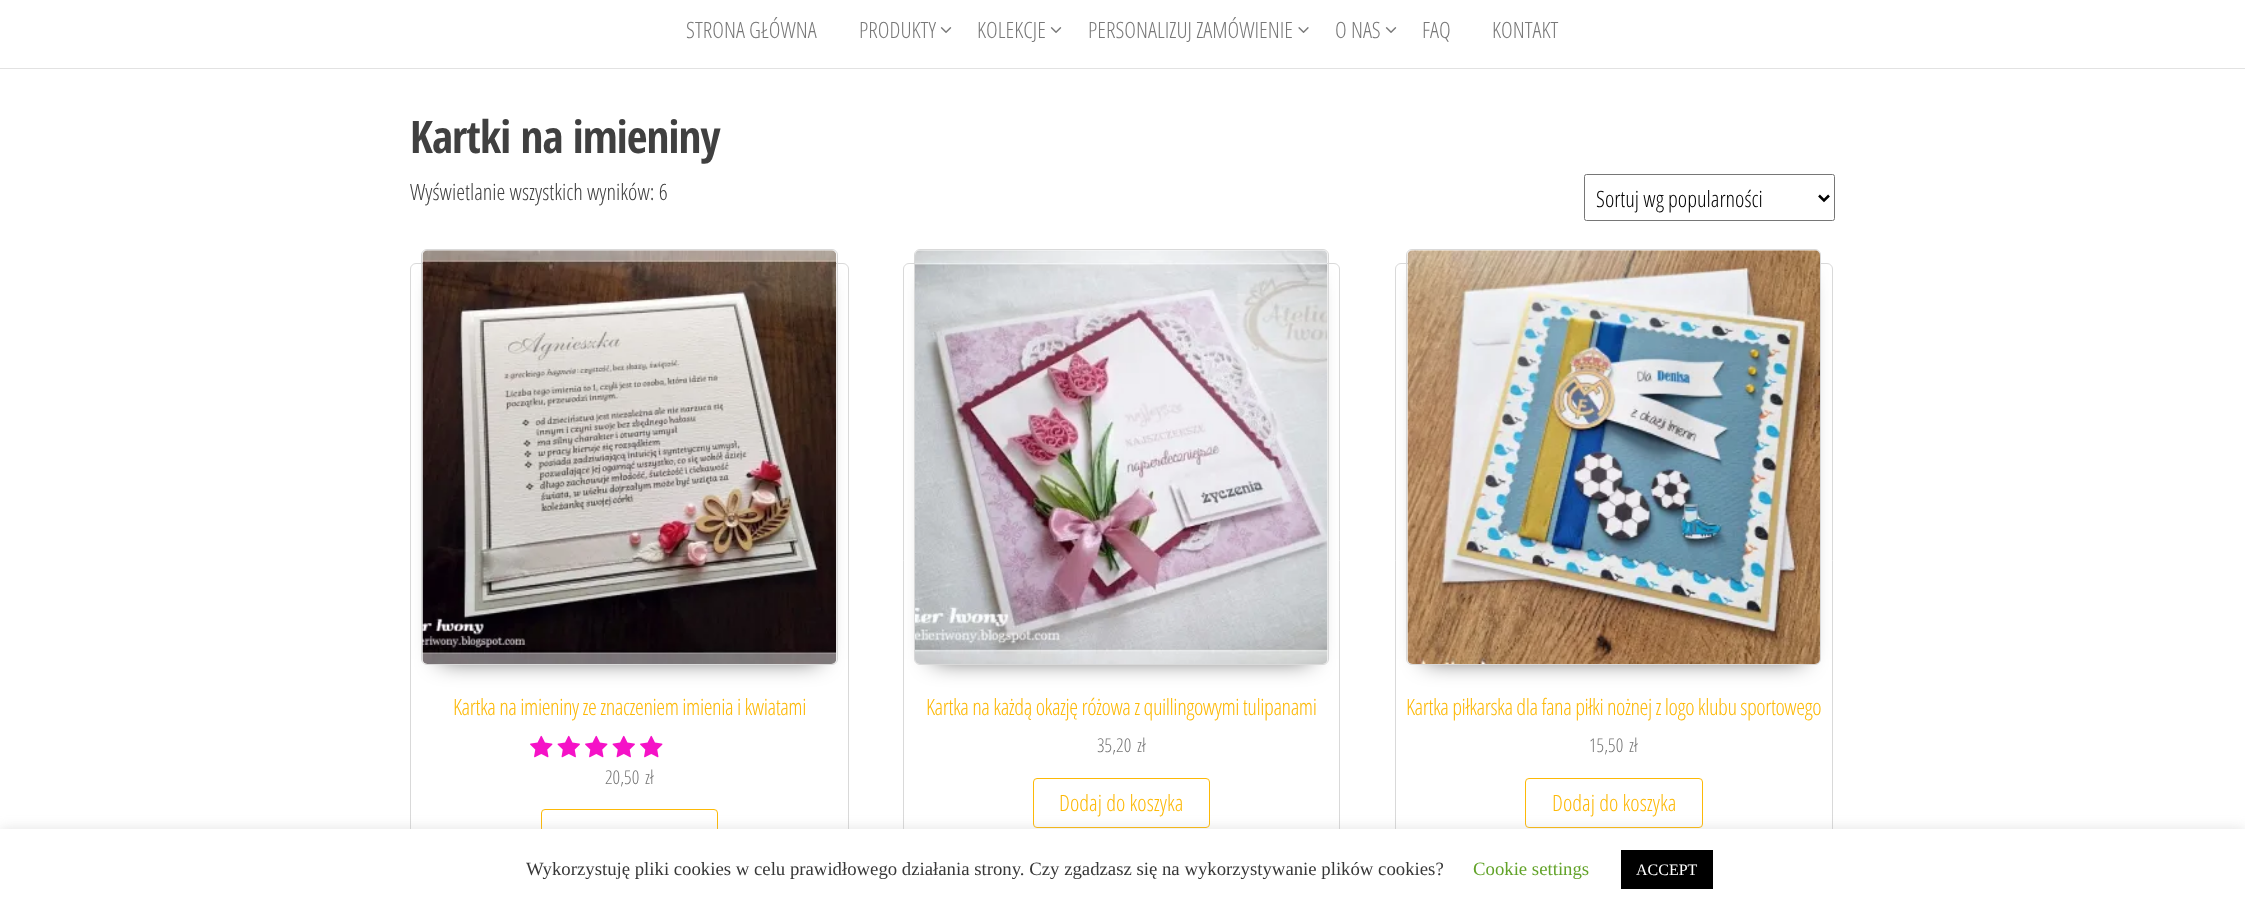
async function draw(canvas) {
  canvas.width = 2245;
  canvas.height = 909;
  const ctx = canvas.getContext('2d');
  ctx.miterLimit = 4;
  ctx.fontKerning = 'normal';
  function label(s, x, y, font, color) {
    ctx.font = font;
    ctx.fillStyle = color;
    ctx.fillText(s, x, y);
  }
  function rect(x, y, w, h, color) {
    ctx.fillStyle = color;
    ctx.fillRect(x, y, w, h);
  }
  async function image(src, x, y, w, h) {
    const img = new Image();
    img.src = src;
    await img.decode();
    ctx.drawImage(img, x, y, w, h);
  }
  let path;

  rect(0, 0, 2245, 909, '#fff');
  rect(0, 68, 2245, 1, '#e2e2e2');
  label('STRONA GŁÓWNA', 686, 38, '300 22.5px Open Sans Condensed', '#777');
  label('PRODUKTY', 859, 38, '300 22.5px Open Sans Condensed', '#777');
  await image('assets/img1.png', 940, 27, 12, 6);
  label('KOLEKCJE', 977, 38, '300 22.5px Open Sans Condensed', '#777');
  await image('assets/img1.png', 1050, 27, 12, 6);
  label('PERSONALIZUJ ZAMÓWIENIE', 1088, 38, '300 22.5px Open Sans Condensed', '#777');
  await image('assets/img2.png', 1298, 27, 11, 6);
  label('O NAS', 1335, 38, '300 22.5px Open Sans Condensed', '#777');
  await image('assets/img1.png', 1385, 27, 12, 6);
  label('FAQ', 1422, 38, '300 22.5px Open Sans Condensed', '#777');
  label('KONTAKT', 1492, 38, '300 22.5px Open Sans Condensed', '#777');
  ctx.letterSpacing = '-0.9px';
  label('Kartki na imieniny', 410, 153, 'bold 45px Open Sans Condensed', '#404040');
  ctx.letterSpacing = '0px';
  label('Wyświetlanie wszystkich wyników: 6', 410, 200, '300 22.5px Open Sans Condensed', '#404040');
  ctx.beginPath();
  ctx.roundRect(1584.5, 174.5, 250, 46, 2);
  ctx.strokeStyle = '#767676';
  ctx.stroke();
  path = new Path2D('M1819 195.5L1824 200.5L1829 195.5');
  ctx.strokeStyle = '#000';
  ctx.lineWidth = 2.5;
  ctx.stroke(path);
  label('Sortuj wg popularności', 1596, 207, '300 22.5px Open Sans Condensed', '#000');
  ctx.beginPath();
  ctx.roundRect(410.5, 263.5, 438, 625, 5.5);
  ctx.strokeStyle = '#d9d9d9';
  ctx.lineWidth = 1;
  ctx.stroke();
  ctx.fillStyle = '#000000bf';
  ctx.filter = 'blur(12.5px)';
  ctx.beginPath();
  ctx.rect(440, 280, 379, 379);
  ctx.fill();
  ctx.filter = 'none';
  ctx.beginPath();
  ctx.roundRect(421.5, 249.5, 416, 415, 5.5);
  ctx.stroke();
  await image('assets/img3.png', 422, 250, 415, 414);
  ctx.letterSpacing = '-0.45px';
  label('Kartka na imieniny ze znaczeniem imienia i kwiatami', 453, 715, '300 22.5px Open Sans Condensed', '#fdb907');
  await image('assets/img4.png', 530, 735, 23, 23);
  await image('assets/img5.png', 557, 735, 23, 23);
  await image('assets/img4.png', 585, 735, 23, 23);
  await image('assets/img5.png', 612, 735, 23, 23);
  await image('assets/img4.png', 640, 735, 23, 23);
  ctx.letterSpacing = '0px';
  label('20,50', 605, 784, '300 19px Open Sans Condensed', '#777');
  label('zł', 645, 784, '300 19px Open Sans Condensed', '#777');
  ctx.beginPath();
  ctx.roundRect(541.5, 809.5, 176, 49, 3.5);
  ctx.strokeStyle = '#fdb907';
  ctx.stroke();
  ctx.beginPath();
  ctx.roundRect(903.5, 263.5, 436, 594, 5.5);
  ctx.strokeStyle = '#d9d9d9';
  ctx.stroke();
  ctx.fillStyle = '#000000bf';
  ctx.filter = 'blur(12.5px)';
  ctx.beginPath();
  ctx.rect(933, 280, 377, 379);
  ctx.fill();
  ctx.filter = 'none';
  ctx.beginPath();
  ctx.roundRect(914.5, 249.5, 414, 415, 5.5);
  ctx.stroke();
  await image('assets/img6.png', 915, 250, 413, 414);
  ctx.letterSpacing = '-0.45px';
  label('Kartka na każdą okazję różowa z quillingowymi tulipanami', 926, 715, '300 22.5px Open Sans Condensed', '#fdb907');
  ctx.letterSpacing = '0px';
  label('35,20', 1097, 752, '300 19px Open Sans Condensed', '#777');
  label('zł', 1137, 752, '300 19px Open Sans Condensed', '#777');
  ctx.beginPath();
  ctx.roundRect(1033.5, 778.5, 176, 49, 3.5);
  ctx.strokeStyle = '#fdb907';
  ctx.stroke();
  label('Dodaj do koszyka', 1059, 811, '300 22.5px Open Sans Condensed', '#fdb907');
  ctx.beginPath();
  ctx.roundRect(1395.5, 263.5, 437, 594, 5.5);
  ctx.strokeStyle = '#d9d9d9';
  ctx.stroke();
  ctx.fillStyle = '#000000bf';
  ctx.filter = 'blur(12.5px)';
  ctx.beginPath();
  ctx.rect(1425, 280, 378, 379);
  ctx.fill();
  ctx.filter = 'none';
  ctx.beginPath();
  ctx.roundRect(1406.5, 249.5, 414, 415, 5.5);
  ctx.stroke();
  await image('assets/img7.png', 1407, 250, 413, 414);
  ctx.letterSpacing = '-0.45px';
  label('Kartka piłkarska dla fana piłki nożnej z logo klubu sportowego', 1406, 715, '300 22.5px Open Sans Condensed', '#fdb907');
  ctx.letterSpacing = '0px';
  label('15,50', 1589, 752, '300 19px Open Sans Condensed', '#777');
  label('zł', 1629, 752, '300 19px Open Sans Condensed', '#777');
  ctx.beginPath();
  ctx.roundRect(1525.5, 778.5, 177, 49, 3.5);
  ctx.strokeStyle = '#fdb907';
  ctx.stroke();
  label('Dodaj do koszyka', 1552, 811, '300 22.5px Open Sans Condensed', '#fdb907');
  ctx.fillStyle = '#acabab4d';
  ctx.filter = 'blur(6px)';
  ctx.beginPath();
  ctx.rect(0, 828, 2245, 81);
  ctx.fill();
  ctx.filter = 'none';
  rect(0, 829, 2245, 80, '#fff');
  label('Wykorzystuję pliki cookies w celu prawidłowego działania strony. Czy zgadzasz się na wykorzystywanie plików cookies?', 526, 875, '18.75px Liberation Serif', '#383838');
  label('Cookie settings', 1473, 875, '18.75px Liberation Serif', '#62a329');
  rect(1621, 850, 92, 39, '#000');
  label('ACCEPT', 1636, 875, '16px Liberation Serif', '#fff');
}

draw(document.querySelector('canvas'));
